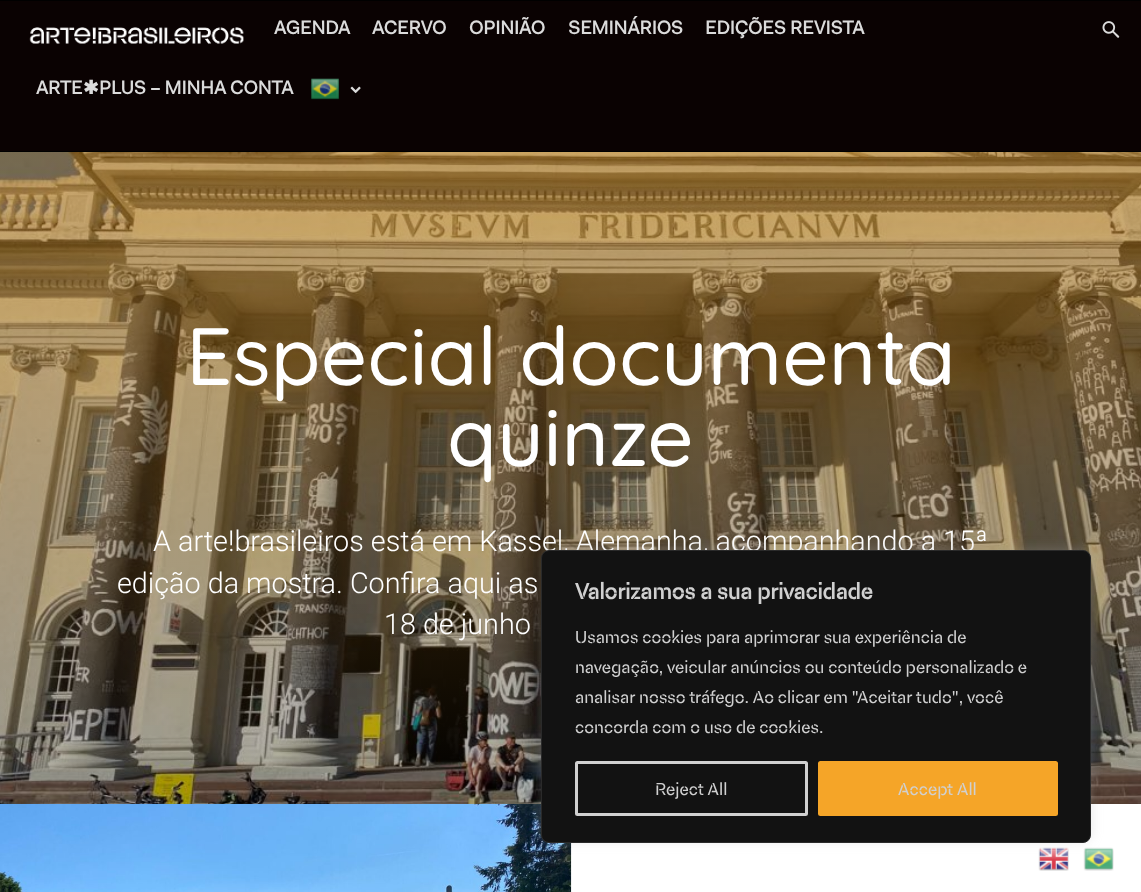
async function draw(canvas) {
  canvas.width = 1141;
  canvas.height = 892;
  const ctx = canvas.getContext('2d');
  ctx.miterLimit = 4;
  ctx.fontKerning = 'normal';
  function label(s, x, y, font, color) {
    ctx.font = font;
    ctx.fillStyle = color;
    ctx.fillText(s, x, y);
  }
  function rect(x, y, w, h, color) {
    ctx.fillStyle = color;
    ctx.fillRect(x, y, w, h);
  }
  async function image(src, x, y, w, h) {
    const img = new Image();
    img.src = src;
    await img.decode();
    ctx.drawImage(img, x, y, w, h);
  }
  let gradient;

  rect(0, 0, 1141, 892, '#fff');
  rect(0, 0, 1141, 1, '#000');
  rect(0, 1, 1141, 150, '#0a0202');
  label('AGENDA', 274, 34, 'bold 18.75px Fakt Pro', '#dbdbdb');
  label('ACERVO', 372, 34, 'bold 18.75px Fakt Pro', '#dbdbdb');
  label('OPINIÃO', 469, 34, 'bold 18.75px Fakt Pro', '#dbdbdb');
  label('SEMINÁRIOS', 568, 34, 'bold 18.75px Fakt Pro', '#dbdbdb');
  label('EDIÇÕES REVISTA', 705, 34, 'bold 18.75px Fakt Pro', '#dbdbdb');
  label('ARTE', 36, 94, 'bold 18.75px Fakt Pro', '#dbdbdb');
  label('✱', 83, 94, 'bold 18.75px DejaVu Sans', '#dbdbdb');
  label('PLUS – MINHA CONTA', 99, 94, 'bold 18.75px Fakt Pro', '#dbdbdb');
  await image('assets/img1.png', 311, 78, 28, 22);
  await image('assets/img2.png', 350, 86, 11, 8);
  await image('assets/img3.png', 29, 27, 215, 17);
  await image('assets/img4.png', 1102, 21, 18, 17);
  rect(0, 151, 1141, 653, '#000');
  await image('assets/img5.png', 0, 152, 1141, 652);
  gradient = ctx.createLinearGradient(571, 151, 571, 804);
  gradient.addColorStop(0, '#ef9e2370');
  gradient.addColorStop(1, '#ef9e2300');
  ctx.fillStyle = gradient;
  ctx.fillRect(0, 152, 1141, 620);
  label('Especial documenta', 186, 385, '500 81.25px Quicksand', '#fff');
  label('quinze', 447, 466, '500 81.25px Quicksand', '#fff');
  label('A arte!brasileiros está em Kassel, Alemanha, acompanhando a 15ª', 153, 551, '300 28.75px Roboto', '#fff');
  label('edição da mostra. Confira aqui as', 117, 593, '300 28.75px Roboto', '#fff');
  label('18 de junho', 384, 634, '300 28.75px Roboto', '#fff');
  await image('assets/img6.png', 0, 803, 572, 89);
  await image('assets/img7.png', 1038, 847, 31, 24);
  await image('assets/img8.png', 1083, 847, 31, 24);
  ctx.fillStyle = '#acabab4d';
  ctx.filter = 'blur(6px)';
  ctx.beginPath();
  ctx.roundRect(541, 549, 550, 292, 8);
  ctx.fill();
  ctx.filter = 'none';
  ctx.fillStyle = '#121212';
  ctx.beginPath();
  ctx.roundRect(541.5, 550.5, 549, 292, 7.5);
  ctx.fill();
  ctx.strokeStyle = '#2a2a2a';
  ctx.stroke();
  label('Valorizamos a sua privacidade', 575, 599, 'bold 22.5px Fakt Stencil', '#d0d0d0');
  label('Usamos cookies para aprimorar sua experiência de', 575, 643, '17.5px Fakt Stencil', '#d0d0d0');
  label('navegação, veicular anúncios ou conteúdo personalizado e', 575, 673, '17.5px Fakt Stencil', '#d0d0d0');
  label('analisar nosso tráfego. Ao clicar em "Aceitar tudo", você', 575, 703, '17.5px Fakt Stencil', '#d0d0d0');
  label('concorda com o uso de cookies.', 575, 733, '17.5px Fakt Stencil', '#d0d0d0');
  ctx.beginPath();
  ctx.roundRect(576.5, 762.5, 230, 52, 1);
  ctx.strokeStyle = '#d0d0d0';
  ctx.lineWidth = 3;
  ctx.stroke();
  label('Reject All', 655, 795, '17.5px Fakt Stencil', '#d0d0d0');
  ctx.fillStyle = '#f5a528';
  ctx.beginPath();
  ctx.roundRect(819.5, 762.5, 237, 52, 1);
  ctx.fill();
  ctx.strokeStyle = '#f5a528';
  ctx.stroke();
  label('Accept All', 898, 795, '17.5px Fakt Stencil', '#d0d0d0');
}

draw(document.querySelector('canvas'));
